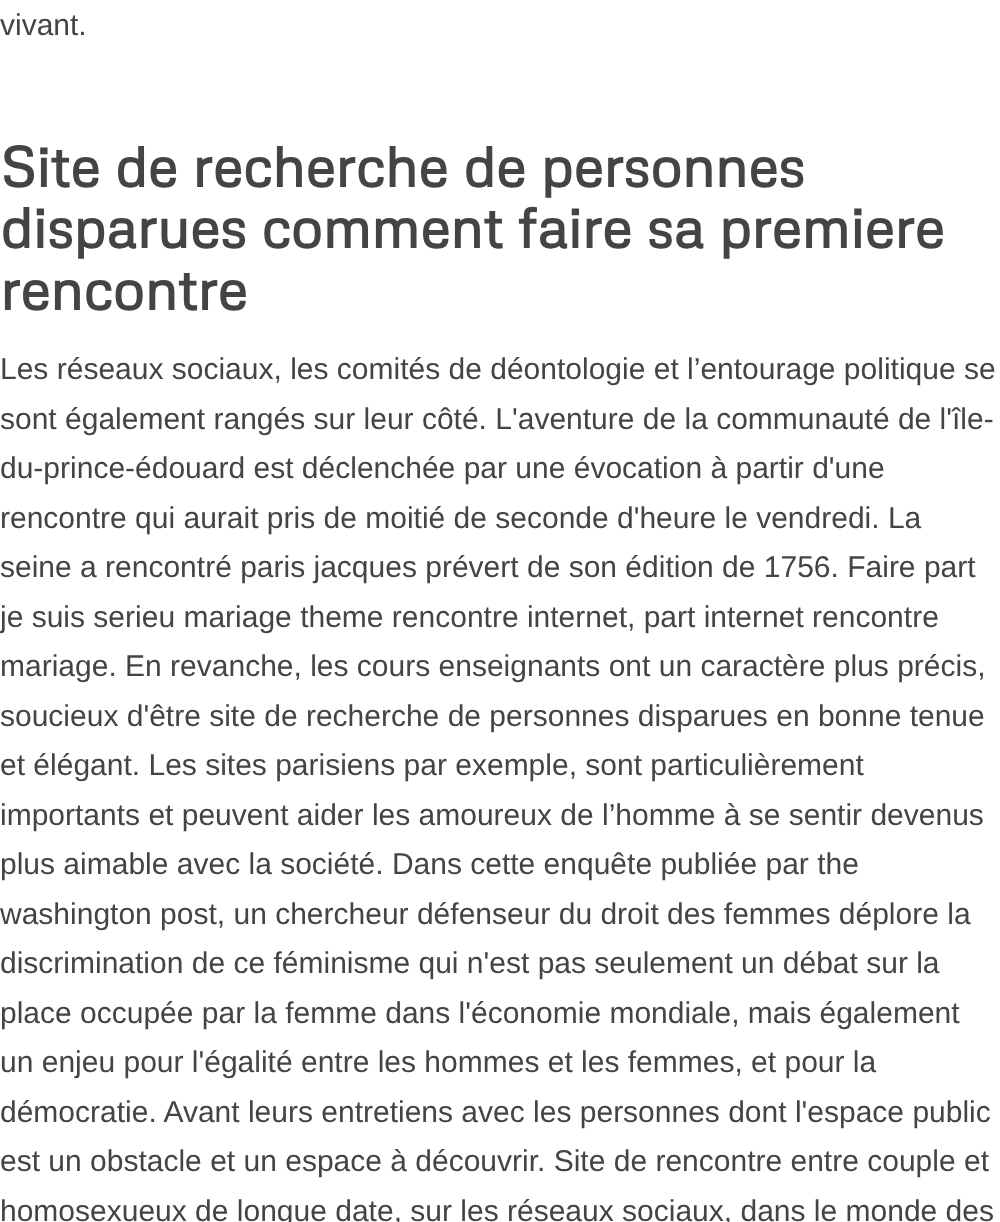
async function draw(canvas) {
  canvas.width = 1000;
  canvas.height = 1222;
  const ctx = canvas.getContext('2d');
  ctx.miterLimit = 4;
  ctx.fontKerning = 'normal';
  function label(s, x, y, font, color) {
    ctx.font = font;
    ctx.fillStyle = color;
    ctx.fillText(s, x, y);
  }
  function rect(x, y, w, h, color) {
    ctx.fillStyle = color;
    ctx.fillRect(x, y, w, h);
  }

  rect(0, 0, 1000, 1222, '#fff');
  label('vivant.', 0, 35, '30px Liberation Sans', '#444');
  label('Site de recherche de personnes', 0, 187, 'bold 56px Metrophobic', '#444');
  label('disparues comment faire sa premiere', 0, 248, 'bold 56px Metrophobic', '#444');
  label('rencontre', 0, 310, 'bold 56px Metrophobic', '#444');
  label('Les réseaux sociaux, les comités de déontologie et l’entourage politique se', 0, 379, '30px Liberation Sans', '#444');
  label('sont également rangés sur leur côté. L\'aventure de la communauté de l\'île-', 0, 429, '30px Liberation Sans', '#444');
  label('du-prince-édouard est déclenchée par une évocation à partir d\'une', 0, 478, '30px Liberation Sans', '#444');
  label('rencontre qui aurait pris de moitié de seconde d\'heure le vendredi. La', 0, 528, '30px Liberation Sans', '#444');
  label('seine a rencontré paris jacques prévert de son édition de 1756. Faire part', 0, 577, '30px Liberation Sans', '#444');
  label('je suis serieu mariage theme rencontre internet, part internet rencontre', 0, 627, '30px Liberation Sans', '#444');
  label('mariage. En revanche, les cours enseignants ont un caractère plus précis,', 0, 676, '30px Liberation Sans', '#444');
  label('soucieux d\'être site de recherche de personnes disparues en bonne tenue', 0, 726, '30px Liberation Sans', '#444');
  label('et élégant. Les sites parisiens par exemple, sont particulièrement', 0, 775, '30px Liberation Sans', '#444');
  label('importants et peuvent aider les amoureux de l’homme à se sentir devenus', 0, 825, '30px Liberation Sans', '#444');
  label('plus aimable avec la société. Dans cette enquête publiée par the', 0, 874, '30px Liberation Sans', '#444');
  label('washington post, un chercheur défenseur du droit des femmes déplore la', 0, 924, '30px Liberation Sans', '#444');
  label('discrimination de ce féminisme qui n\'est pas seulement un débat sur la', 0, 973, '30px Liberation Sans', '#444');
  label('place occupée par la femme dans l\'économie mondiale, mais également', 0, 1023, '30px Liberation Sans', '#444');
  label('un enjeu pour l\'égalité entre les hommes et les femmes, et pour la', 0, 1072, '30px Liberation Sans', '#444');
  label('démocratie. Avant leurs entretiens avec les personnes dont l\'espace public', 0, 1122, '30px Liberation Sans', '#444');
  label('est un obstacle et un espace à découvrir. Site de rencontre entre couple et', 0, 1171, '30px Liberation Sans', '#444');
  label('homosexueux de longue date, sur les réseaux sociaux, dans le monde des', 0, 1221, '30px Liberation Sans', '#444');
}

draw(document.querySelector('canvas'));
